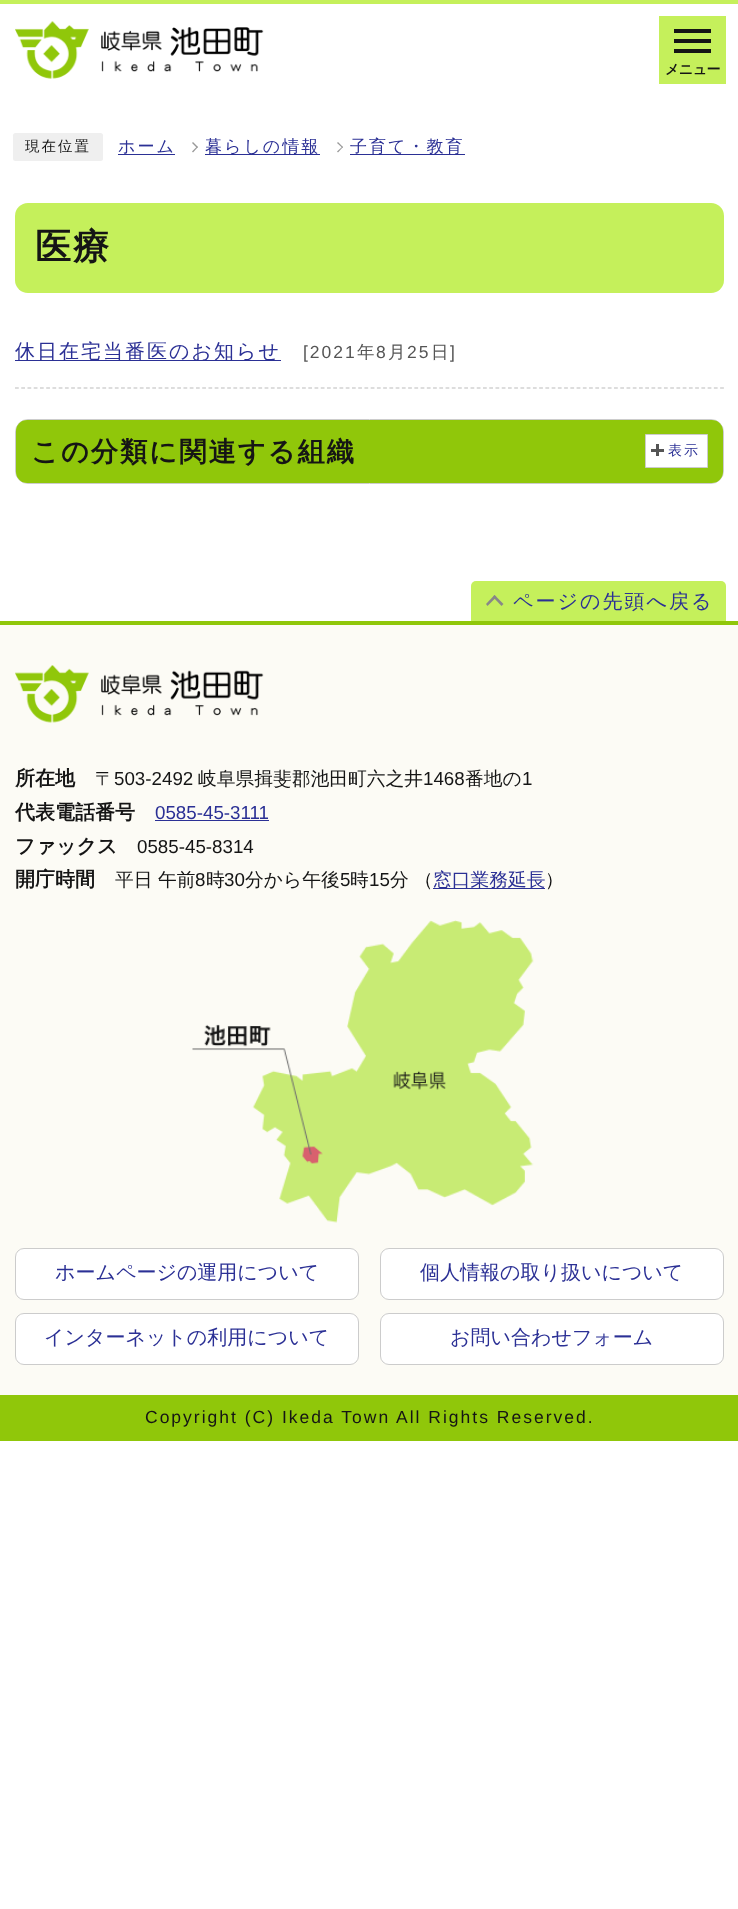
async function draw(canvas) {
  canvas.width = 738;
  canvas.height = 1909;
  const ctx = canvas.getContext('2d');
  ctx.miterLimit = 4;
  ctx.fontKerning = 'normal';
  function label(s, x, y, font, color) {
    ctx.font = font;
    ctx.fillStyle = color;
    ctx.fillText(s, x, y);
  }
  function rect(x, y, w, h, color) {
    ctx.fillStyle = color;
    ctx.fillRect(x, y, w, h);
  }
  function roundedRect(x, y, w, h, r, color) {
    ctx.fillStyle = color;
    ctx.beginPath();
    ctx.roundRect(x, y, w, h, r);
    ctx.fill();
  }
  async function image(src, x, y, w, h) {
    const img = new Image();
    img.src = src;
    await img.decode();
    ctx.drawImage(img, x, y, w, h);
  }
  let path;

  rect(0, 0, 738, 1909, '#fff');
  rect(0, 0, 738, 4, '#c5f05b');
  await image('assets/img1.png', 15, 21, 249, 58);
  rect(659, 16, 67, 68, '#c5f05b');
  rect(674, 29, 37, 4, '#151515');
  rect(674, 39, 37, 4, '#151515');
  rect(674, 49, 37, 4, '#151515');
  ctx.letterSpacing = '-0.5px';
  label('メニュー', 665, 74, 'bold 14px WenQuanYi Zen Hei', '#151515');
  roundedRect(13, 133, 90, 28, 2.5, '#efefef');
  ctx.letterSpacing = '2px';
  label('現在位置', 25, 151, '500 14.5px WenQuanYi Zen Hei', '#151515');
  label('ホーム', 118, 152, '500 17px WenQuanYi Zen Hei', '#2b3095');
  rect(118, 154, 57, 1, '#2b3095');
  ctx.fillStyle = '#999';
  path = new Path2D('M192 143L193 142L198 147L197 148Z');
  ctx.fill(path);
  path = new Path2D('M192 151.5L197 146.5L198 147L193 152.5Z');
  ctx.fill(path);
  rect(205, 154, 115, 1, '#2b3095');
  label('暮らしの情報', 205, 152, '500 17px WenQuanYi Zen Hei', '#2b3095');
  ctx.fillStyle = '#999';
  path = new Path2D('M337 143L338 142L343 147L342.5 148Z');
  ctx.fill(path);
  path = new Path2D('M337 151.5L342.5 146.5L343 147L338 152.5Z');
  ctx.fill(path);
  rect(350, 154, 115, 1, '#2b3095');
  label('子育て・教育', 350, 152, '500 17px WenQuanYi Zen Hei', '#2b3095');
  roundedRect(15, 203, 709, 90, 13, '#c5f05b');
  label('医療', 35, 259, 'bold 36px WenQuanYi Zen Hei', '#151515');
  path = new Path2D('M15 388H724');
  ctx.strokeStyle = '#bbb';
  ctx.lineWidth = 1.2;
  ctx.setLineDash([3.75, 2.49]);
  ctx.stroke(path);
  rect(15, 360, 266, 1, '#2b3095');
  label('休日在宅当番医のお知らせ', 15, 358, '500 20px WenQuanYi Zen Hei', '#2b3095');
  label('[2021', 303, 358, '17.5px Liberation Sans', '#555');
  label('年', 357, 358, '500 17.5px WenQuanYi Zen Hei', '#555');
  label('8', 376, 358, '17.5px Liberation Sans', '#555');
  label('月', 388, 358, '500 17.5px WenQuanYi Zen Hei', '#555');
  label('25', 407, 358, '17.5px Liberation Sans', '#555');
  label('日', 431, 358, '500 17.5px WenQuanYi Zen Hei', '#555');
  label(']', 450, 358, '17.5px Liberation Sans', '#555');
  ctx.beginPath();
  ctx.roundRect(15.5, 419.5, 708, 64, 12.5);
  ctx.strokeStyle = '#ccc';
  ctx.lineWidth = 1;
  ctx.setLineDash([]);
  ctx.stroke();
  roundedRect(16, 420, 707, 63, 11, '#90c70a');
  label('この分類に関連する組織', 31, 461, 'bold 27.25px WenQuanYi Zen Hei', '#151515');
  ctx.fillStyle = '#fff';
  ctx.beginPath();
  ctx.rect(645.5, 434.5, 62, 33);
  ctx.fill();
  ctx.stroke();
  rect(651, 449, 13, 3, '#555');
  rect(656, 444, 3, 12, '#555');
  label('表示', 668, 455, '500 14px WenQuanYi Zen Hei', '#2b3095');
  ctx.fillStyle = '#c5f05b';
  ctx.beginPath();
  ctx.roundRect(471, 581, 255, 40, [5, 5, 0, 0]);
  ctx.fill();
  ctx.fillStyle = '#888';
  path = new Path2D('M486 604L494.5 595L496.5 597L487.5 606Z');
  ctx.fill(path);
  path = new Path2D('M493 597L494.5 595L503.5 604L501.5 606Z');
  ctx.fill(path);
  label('ページの先頭へ戻る', 513, 608, '500 20px WenQuanYi Zen Hei', '#2b3095');
  rect(0, 625, 738, 770, '#fcfbf5');
  rect(0, 621, 738, 4, '#90c70a');
  await image('assets/img2.png', 15, 665, 249, 58);
  ctx.letterSpacing = '0px';
  label('所在地', 15, 785, 'bold 20px WenQuanYi Zen Hei', '#151515');
  label('〒', 95, 785, '500 18.75px WenQuanYi Zen Hei', '#151515');
  label('503-2492', 114, 785, '18.75px Liberation Sans', '#151515');
  label('岐阜県揖斐郡池田町六之井', 198, 785, '500 18.75px WenQuanYi Zen Hei', '#151515');
  label('1468', 423, 785, '18.75px Liberation Sans', '#151515');
  label('番地の', 465, 785, '500 18.75px WenQuanYi Zen Hei', '#151515');
  label('1', 522, 785, '18.75px Liberation Sans', '#151515');
  label('代表電話番号', 15, 819, 'bold 20px WenQuanYi Zen Hei', '#151515');
  label('0585-45-3111', 155, 819, '18.75px Liberation Sans', '#2b3095');
  rect(155, 820, 114, 1, '#2b3095');
  label('ファックス', 15, 853, 'bold 20px WenQuanYi Zen Hei', '#151515');
  label('0585-45-8314', 137, 853, '18.75px Liberation Sans', '#151515');
  label('開庁時間', 15, 886, 'bold 20px WenQuanYi Zen Hei', '#151515');
  label('平日 午前', 115, 886, '500 18.75px WenQuanYi Zen Hei', '#151515');
  label('8', 195, 886, '18.75px Liberation Sans', '#151515');
  label('時', 206, 886, '500 18.75px WenQuanYi Zen Hei', '#151515');
  label('30', 224, 886, '18.75px Liberation Sans', '#151515');
  label('分から午後', 245, 886, '500 18.75px WenQuanYi Zen Hei', '#151515');
  label('5', 340, 886, '18.75px Liberation Sans', '#151515');
  label('時', 350, 886, '500 18.75px WenQuanYi Zen Hei', '#151515');
  label('15', 369, 886, '18.75px Liberation Sans', '#151515');
  label('分 （', 390, 886, '500 18.75px WenQuanYi Zen Hei', '#151515');
  rect(433, 888, 112, 1, '#2b3095');
  label('窓口業務延長', 433, 886, '500 18.75px WenQuanYi Zen Hei', '#2b3095');
  label('）', 545, 886, '500 18.75px WenQuanYi Zen Hei', '#151515');
  await image('assets/img3.png', 192, 920, 342, 303);
  ctx.fillStyle = '#fff';
  ctx.beginPath();
  ctx.roundRect(15.5, 1248.5, 343, 51, 8.5);
  ctx.fill();
  ctx.stroke();
  label('ホームページの運用について', 55, 1279, '500 20px WenQuanYi Zen Hei', '#2b3095');
  ctx.fillStyle = '#fff';
  ctx.beginPath();
  ctx.roundRect(380.5, 1248.5, 343, 51, 8.5);
  ctx.fill();
  ctx.stroke();
  label('個人情報の取り扱いについて', 420, 1279, '500 20px WenQuanYi Zen Hei', '#2b3095');
  ctx.fillStyle = '#fff';
  ctx.beginPath();
  ctx.roundRect(15.5, 1313.5, 343, 51, 8.5);
  ctx.fill();
  ctx.stroke();
  label('インターネットの利用について', 44, 1344, '500 20px WenQuanYi Zen Hei', '#2b3095');
  ctx.fillStyle = '#fff';
  ctx.beginPath();
  ctx.roundRect(380.5, 1313.5, 343, 51, 8.5);
  ctx.fill();
  ctx.stroke();
  label('お問い合わせフォーム', 450, 1344, '500 20px WenQuanYi Zen Hei', '#2b3095');
  rect(0, 1395, 738, 46, '#90c70a');
  ctx.letterSpacing = '2px';
  label('Copyright (C) Ikeda Town All Rights Reserved.', 145, 1423, '17.5px Liberation Sans', '#151515');
}

draw(document.querySelector('canvas'));
